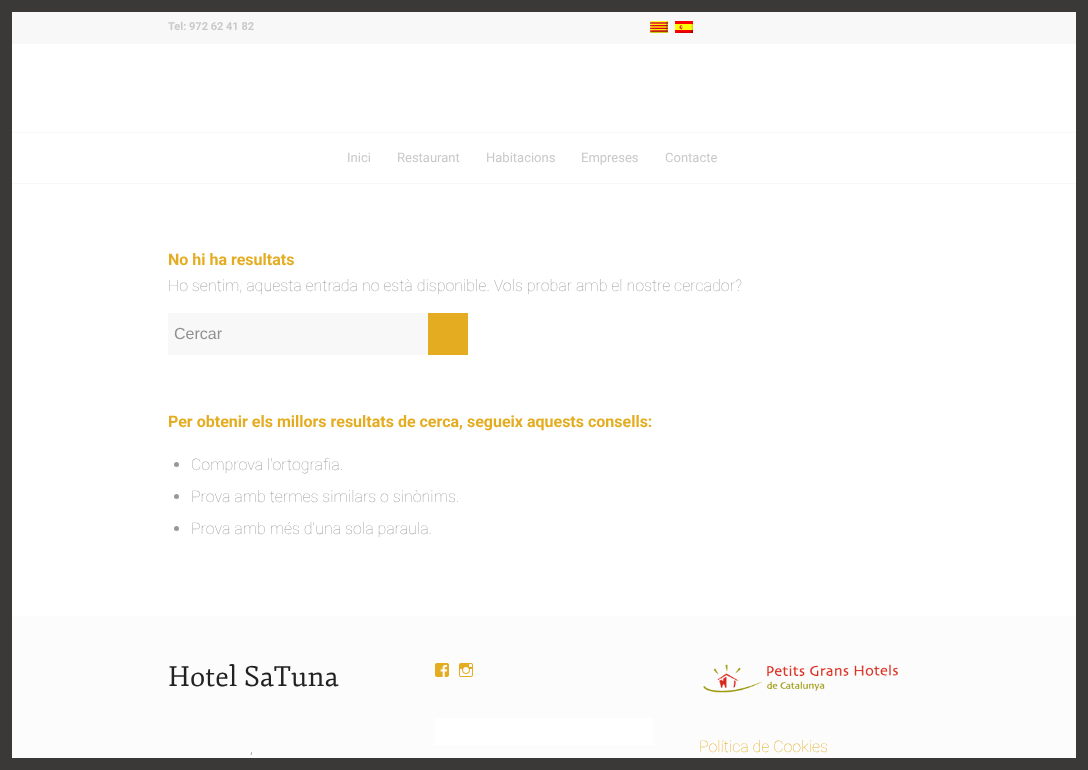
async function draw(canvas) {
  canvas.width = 1088;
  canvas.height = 770;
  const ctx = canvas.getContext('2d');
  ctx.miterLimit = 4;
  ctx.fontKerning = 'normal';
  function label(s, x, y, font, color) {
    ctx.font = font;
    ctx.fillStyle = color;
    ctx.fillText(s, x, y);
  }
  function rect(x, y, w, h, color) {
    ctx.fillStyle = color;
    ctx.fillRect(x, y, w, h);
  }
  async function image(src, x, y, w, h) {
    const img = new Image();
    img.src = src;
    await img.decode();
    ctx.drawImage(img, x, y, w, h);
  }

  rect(0, 0, 1088, 770, '#fff');
  rect(0, 0, 12, 770, '#3b3937');
  rect(12, 0, 1064, 12, '#3b3937');
  rect(1076, 0, 12, 770, '#3b3937');
  rect(12, 12, 1064, 32, '#f8f8f8');
  label('Tel: 972 62 41 82', 168, 30, 'bold 11px Roboto', '#c9c9c9');
  await image('assets/img1.png', 650, 21, 18, 12);
  await image('assets/img2.png', 675, 21, 18, 12);
  rect(12, 183, 1064, 1, '#f8f8f8');
  rect(12, 132, 1064, 1, '#f8f8f8');
  label('Inici', 347, 162, '13px Roboto', '#c9c9c9');
  label('Restaurant', 397, 162, '13px Roboto', '#c9c9c9');
  label('Habitacions', 486, 162, '13px Roboto', '#c9c9c9');
  label('Empreses', 581, 162, '13px Roboto', '#c9c9c9');
  label('Contacte', 665, 162, '13px Roboto', '#c9c9c9');
  label('No hi ha resultats', 168, 265, 'bold 16px Roboto', '#e4ad21');
  label('Ho sentim, aquesta entrada no està disponible. Vols probar amb el nostre cercador?', 168, 291, '100 16px Roboto', '#999');
  rect(168, 313, 260, 42, '#f8f8f8');
  label('Cercar', 174, 339, '16px Liberation Sans', '#919191');
  rect(428, 313, 40, 42, '#e4ad21');
  label('Per obtenir els millors resultats de cerca, segueix aquests consells:', 168, 427, 'bold 16px Roboto', '#e4ad21');
  ctx.fillStyle = '#999';
  ctx.beginPath();
  ctx.arc(176.5, 464.5, 2.5, 0, 2 * Math.PI);
  ctx.fill();
  label('Comprova l\'ortografia.', 191, 470, '100 16px Roboto', '#999');
  ctx.beginPath();
  ctx.arc(176.5, 496.5, 2.5, 0, 2 * Math.PI);
  ctx.fill();
  label('Prova amb termes similars o sinònims.', 191, 502, '100 16px Roboto', '#999');
  ctx.beginPath();
  ctx.arc(176.5, 528.5, 2.5, 0, 2 * Math.PI);
  ctx.fill();
  label('Prova amb més d\'una sola paraula.', 191, 534, '100 16px Roboto', '#999');
  rect(12, 616, 1064, 142, '#fcfcfc');
  label('Hotel SaTuna', 168, 686, '28px Fjord', '#222');
  label('’', 250, 764, '100 16px Roboto', '#595959');
  await image('assets/img3.png', 435, 663, 14, 14);
  await image('assets/img4.png', 459, 663, 14, 14);
  rect(434, 718, 220, 27, '#fff');
  await image('assets/img5.png', 703, 664, 195, 29);
  label('Política de Cookies', 699, 752, '100 16px Roboto', '#e4ad21');
  rect(12, 758, 1064, 12, '#3b3937');
}

draw(document.querySelector('canvas'));
